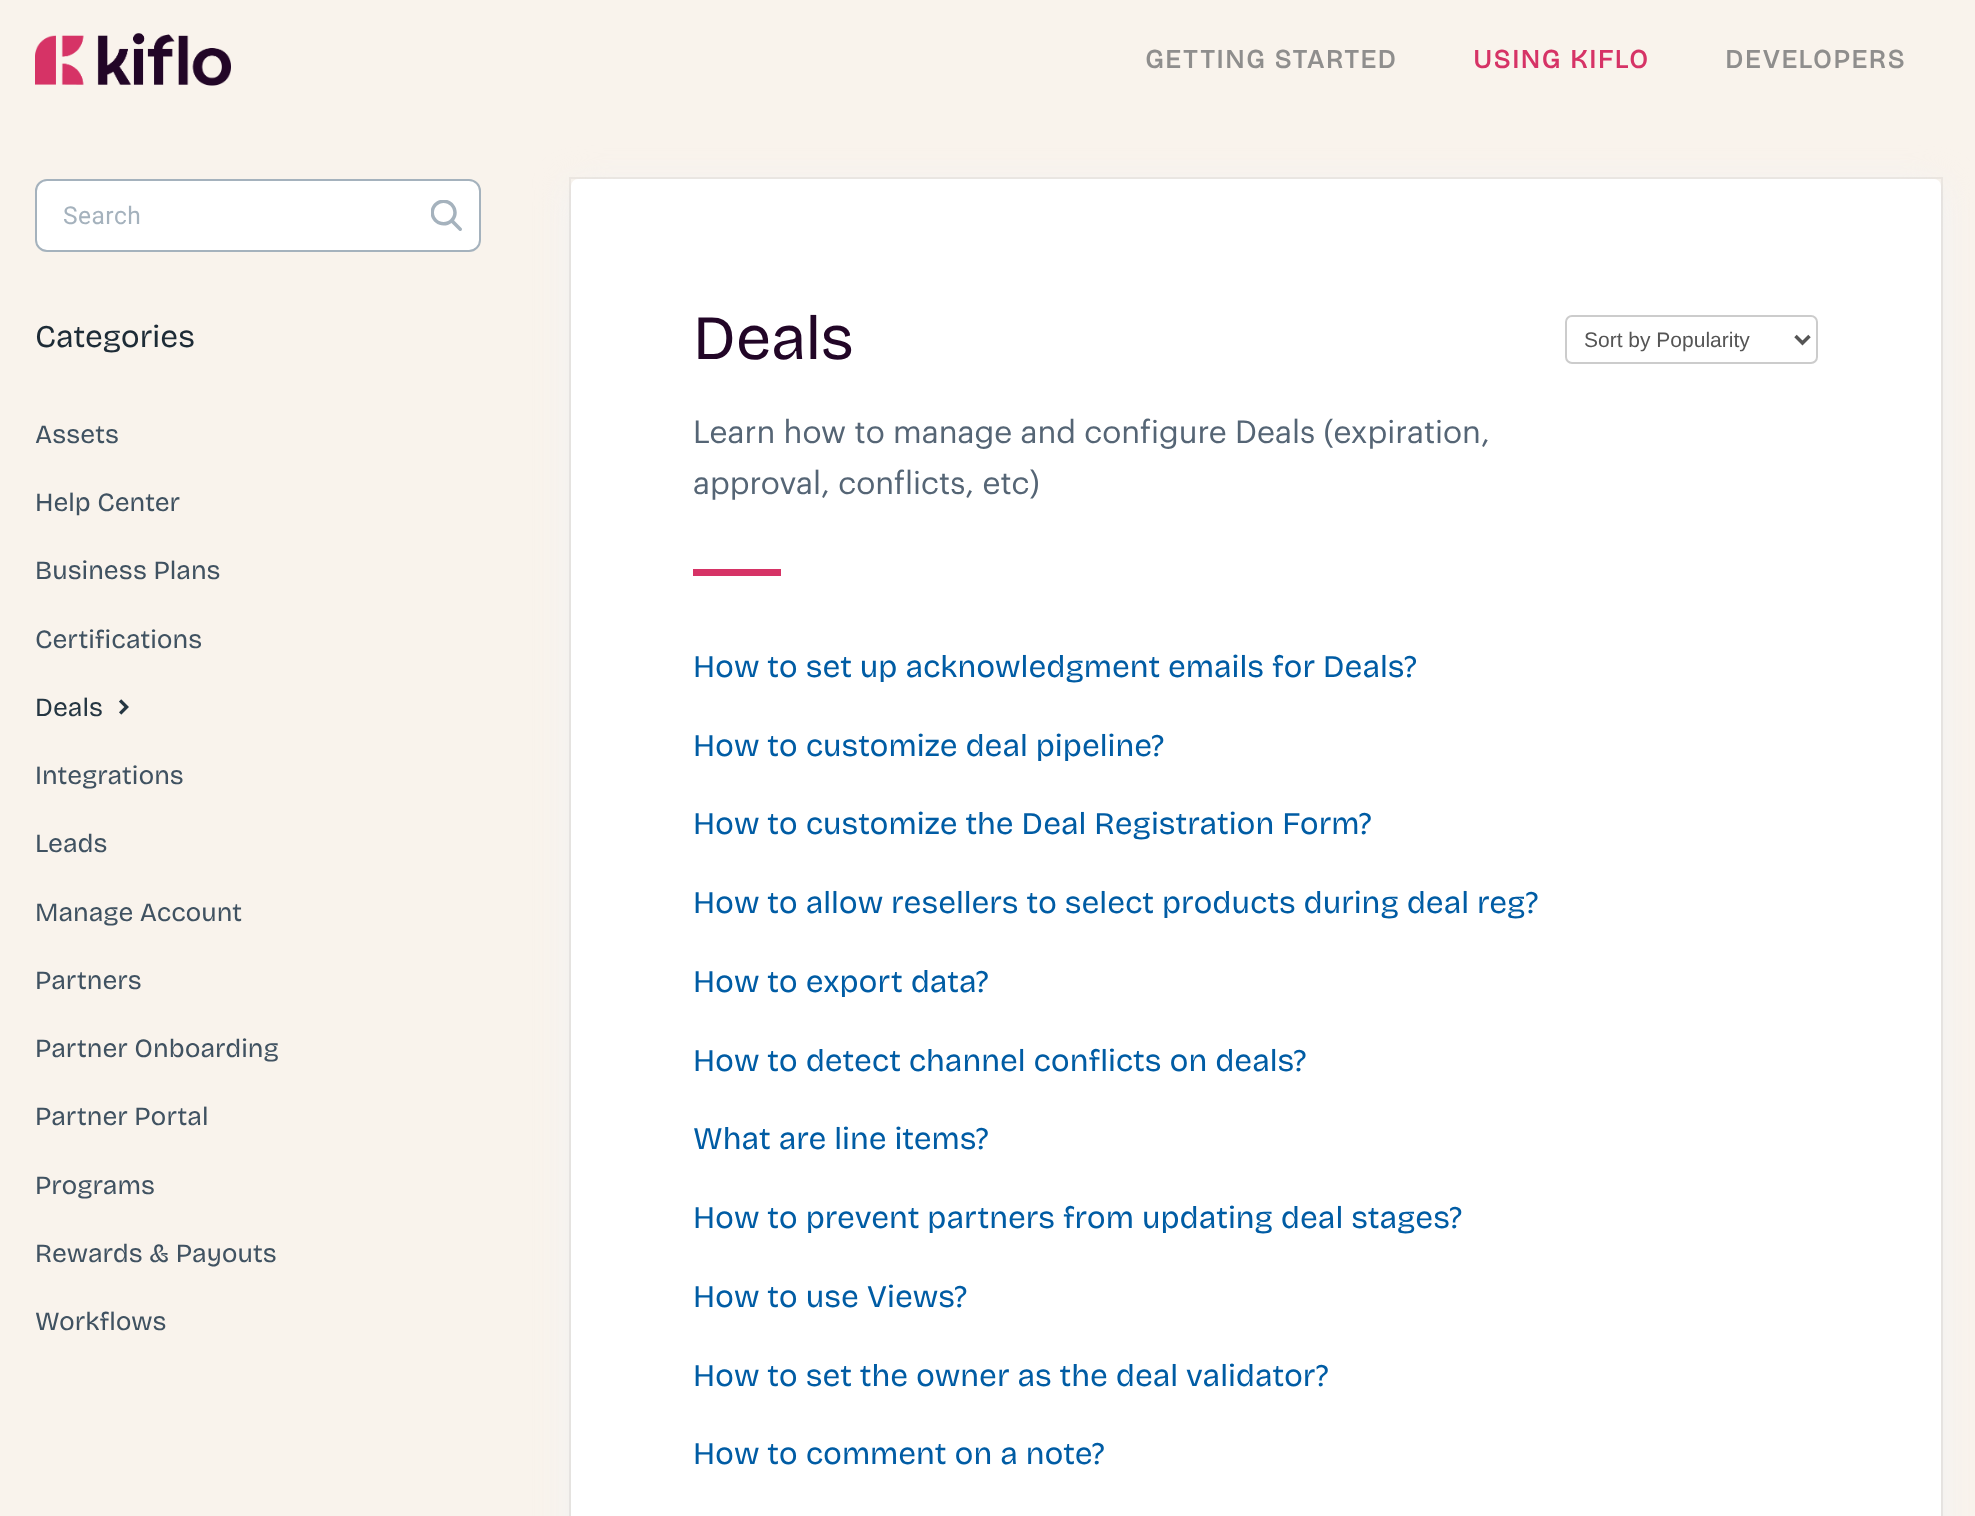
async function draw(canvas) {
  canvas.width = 1975;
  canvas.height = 1516;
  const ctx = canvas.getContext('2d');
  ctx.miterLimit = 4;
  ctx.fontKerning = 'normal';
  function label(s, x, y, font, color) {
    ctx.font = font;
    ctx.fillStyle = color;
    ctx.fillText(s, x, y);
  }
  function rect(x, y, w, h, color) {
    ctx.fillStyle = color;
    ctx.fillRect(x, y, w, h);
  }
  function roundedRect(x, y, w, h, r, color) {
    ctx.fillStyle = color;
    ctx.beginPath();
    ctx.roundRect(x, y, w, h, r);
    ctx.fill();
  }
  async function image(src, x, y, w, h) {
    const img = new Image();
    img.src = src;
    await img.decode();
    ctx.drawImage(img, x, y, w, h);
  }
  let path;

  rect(0, 0, 1975, 1516, '#f9f3ec');
  await image('assets/img1.png', 35, 33, 196, 53);
  ctx.letterSpacing = '1.75px';
  label('GETTING STARTED', 1145, 68, 'bold 26.25px Bricolage Grotesque', '#8f8e8d');
  label('USING KIFLO', 1473, 68, 'bold 26.25px Bricolage Grotesque', '#d63366');
  label('DEVELOPERS', 1725, 68, 'bold 26.25px Bricolage Grotesque', '#8f8e8d');
  ctx.fillStyle = '#fff';
  ctx.beginPath();
  ctx.roundRect(36, 180, 444, 71, 11);
  ctx.fill();
  ctx.strokeStyle = '#a5b2bd';
  ctx.lineWidth = 2;
  ctx.stroke();
  ctx.letterSpacing = '0.5px';
  label('Search', 63, 224, '24.5px Roboto', '#a5b2bd');
  await image('assets/img2.png', 431, 200, 31, 31);
  ctx.letterSpacing = '0px';
  label('Categories', 35, 347, '31.5px Bricolage Grotesque', '#1d2b36');
  label('Assets', 35, 443, '26.25px Bricolage Grotesque', '#405261');
  label('Help Center', 35, 511, '26.25px Bricolage Grotesque', '#405261');
  label('Business Plans', 35, 579, '26.25px Bricolage Grotesque', '#405261');
  label('Certifications', 35, 648, '26.25px Bricolage Grotesque', '#405261');
  label('Deals', 35, 716, '26.25px Bricolage Grotesque', '#253642');
  await image('assets/img3.png', 119, 699, 10, 16);
  label('Integrations', 35, 784, '26.25px Bricolage Grotesque', '#405261');
  label('Leads', 35, 852, '26.25px Bricolage Grotesque', '#405261');
  label('Manage Account', 35, 921, '26.25px Bricolage Grotesque', '#405261');
  label('Partners', 35, 989, '26.25px Bricolage Grotesque', '#405261');
  label('Partner Onboarding', 35, 1057, '26.25px Bricolage Grotesque', '#405261');
  label('Partner Portal', 35, 1125, '26.25px Bricolage Grotesque', '#405261');
  label('Programs', 35, 1194, '26.25px Bricolage Grotesque', '#405261');
  label('Rewards & Payouts', 35, 1262, '26.25px Bricolage Grotesque', '#405261');
  label('Workflows', 35, 1330, '26.25px Bricolage Grotesque', '#405261');
  ctx.fillStyle = '#0000000d';
  ctx.filter = 'blur(2.5px)';
  ctx.beginPath();
  ctx.roundRect(571, 184, 1370, 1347, 7);
  ctx.fill();
  ctx.filter = 'none';
  ctx.fillStyle = '#f1f3f5';
  ctx.filter = 'blur(17.5px)';
  ctx.beginPath();
  ctx.roundRect(571, 187, 1370, 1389, 7);
  ctx.fill();
  ctx.filter = 'none';
  ctx.strokeStyle = '#0000000d';
  ctx.strokeRect(570, 178, 1372, 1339);
  roundedRect(571, 179, 1370, 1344, 7, '#fff');
  ctx.letterSpacing = '-0.5px';
  label('Deals', 693, 359, '63px Bricolage Grotesque', '#220627');
  ctx.beginPath();
  ctx.roundRect(1566, 316, 251, 47, 6);
  ctx.strokeStyle = '#ccc';
  ctx.stroke();
  path = new Path2D('M1795.5 336L1802.5 343L1809.5 336');
  ctx.strokeStyle = '#555';
  ctx.lineWidth = 3.5;
  ctx.stroke(path);
  ctx.letterSpacing = '0px';
  label('Sort by Popularity', 1584, 347, '21px Liberation Sans', '#555');
  label('Learn how to manage and configure Deals (expiration,', 693, 443, '31.5px Graphik', '#556575');
  label('approval, conflicts, etc)', 693, 494, '31.5px Graphik', '#556575');
  rect(693, 569, 88, 7, '#d63366');
  label('How to set up acknowledgment emails for Deals?', 693, 677, '31.5px Bricolage Grotesque', '#005ca4');
  label('How to customize deal pipeline?', 693, 756, '31.5px Bricolage Grotesque', '#005ca4');
  label('How to customize the Deal Registration Form?', 693, 834, '31.5px Bricolage Grotesque', '#005ca4');
  label('How to allow resellers to select products during deal reg?', 693, 913, '31.5px Bricolage Grotesque', '#005ca4');
  label('How to export data?', 693, 992, '31.5px Bricolage Grotesque', '#005ca4');
  label('How to detect channel conflicts on deals?', 693, 1071, '31.5px Bricolage Grotesque', '#005ca4');
  label('What are line items?', 693, 1149, '31.5px Bricolage Grotesque', '#005ca4');
  label('How to prevent partners from updating deal stages?', 693, 1228, '31.5px Bricolage Grotesque', '#005ca4');
  label('How to use Views?', 693, 1307, '31.5px Bricolage Grotesque', '#005ca4');
  label('How to set the owner as the deal validator?', 693, 1386, '31.5px Bricolage Grotesque', '#005ca4');
  label('How to comment on a note?', 693, 1464, '31.5px Bricolage Grotesque', '#005ca4');
}

draw(document.querySelector('canvas'));
